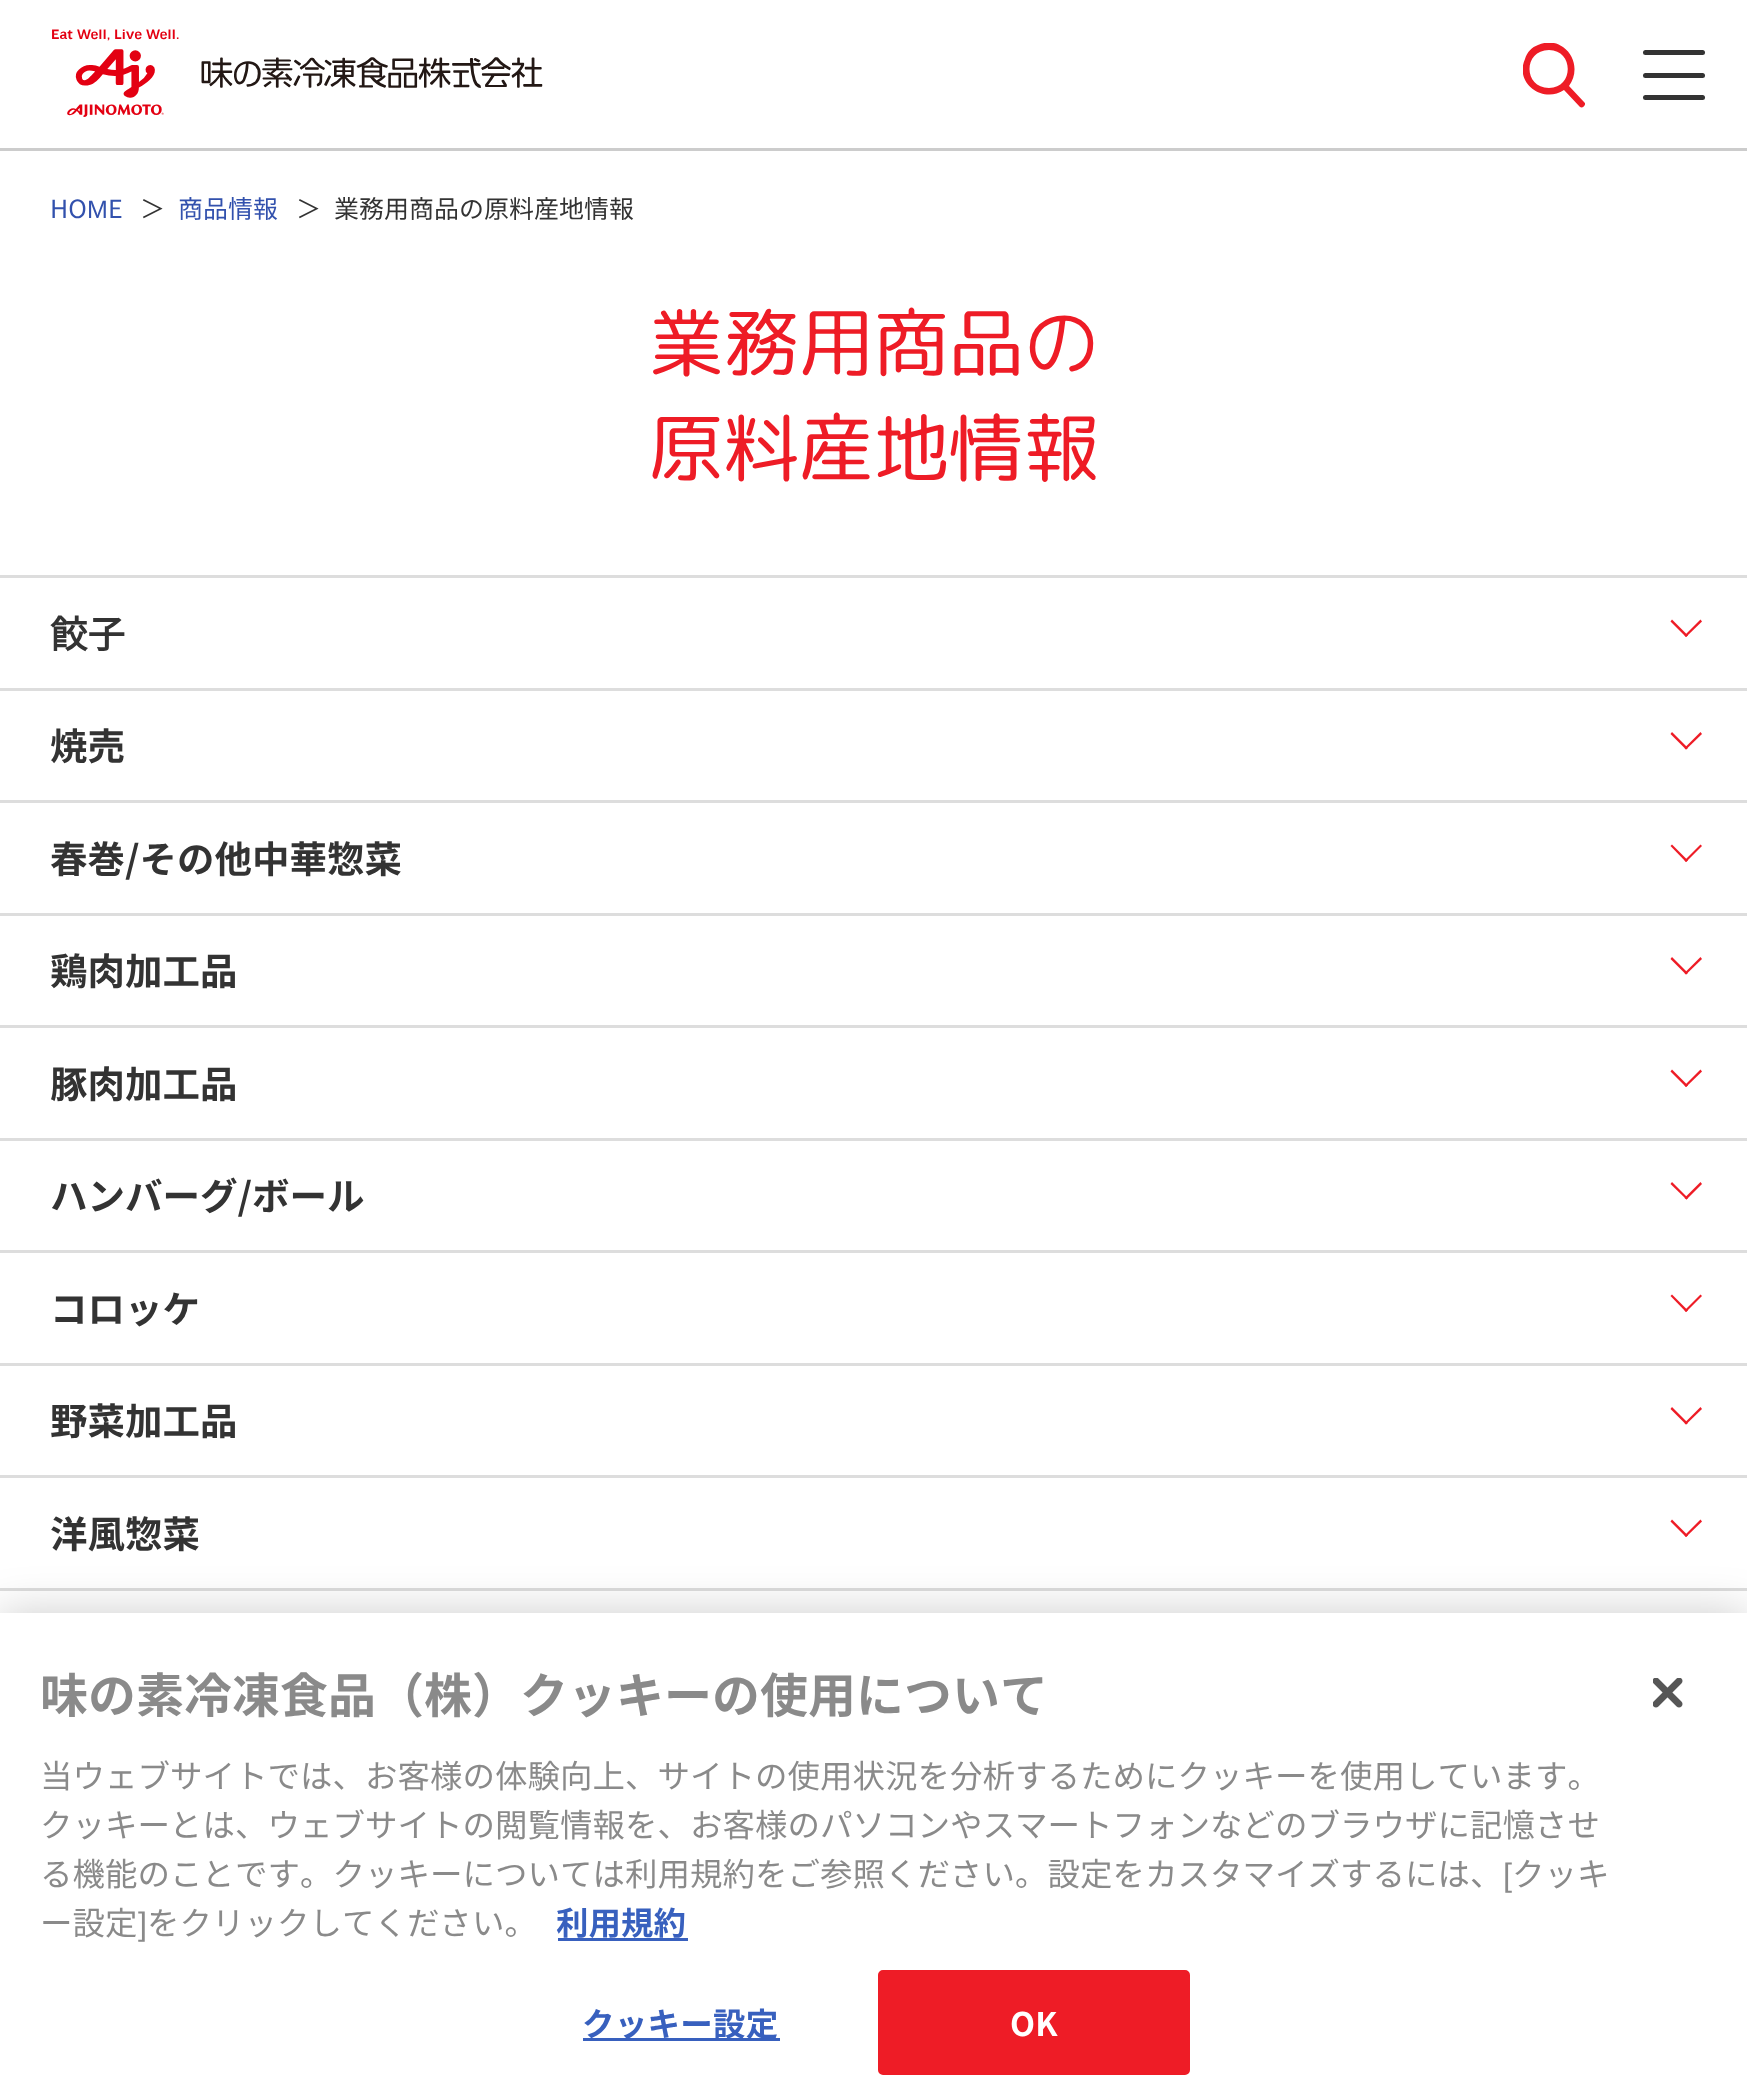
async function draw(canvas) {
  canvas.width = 1747;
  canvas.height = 2098;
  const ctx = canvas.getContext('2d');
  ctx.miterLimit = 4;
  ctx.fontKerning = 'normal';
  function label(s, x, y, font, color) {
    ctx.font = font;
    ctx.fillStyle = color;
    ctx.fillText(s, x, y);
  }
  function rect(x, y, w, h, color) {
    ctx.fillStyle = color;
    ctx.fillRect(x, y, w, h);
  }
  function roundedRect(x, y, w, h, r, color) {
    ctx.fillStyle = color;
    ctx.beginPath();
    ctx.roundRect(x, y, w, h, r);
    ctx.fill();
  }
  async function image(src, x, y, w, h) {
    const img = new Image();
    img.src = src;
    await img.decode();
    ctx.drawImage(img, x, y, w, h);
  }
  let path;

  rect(0, 0, 1747, 2098, '#fff');
  rect(0, 148, 1747, 3, '#ccc');
  await image('assets/img1.png', 52, 29, 491, 88);
  ctx.save();
  ctx.beginPath();
  ctx.rect(1523, 43, 62, 65);
  ctx.clip();
  ctx.fillStyle = '#ee1c26';
  path = new Path2D('M1584 102L1569 86C1578 74 1576 56 1563 47C1556 42 1547 41 1538 45C1532 47 1527 52 1525 59C1514 83 1543 104 1564 90L1580 107C1583 109 1587 104 1584 102ZM1549 50C1574 50 1574 88 1549 88C1523 88 1523 50 1549 50Z');
  ctx.fill(path);
  ctx.restore();
  roundedRect(1643, 50, 62, 5, 2.5, '#333');
  roundedRect(1643, 73, 62, 5, 2.5, '#333');
  roundedRect(1643, 95, 62, 5, 2.5, '#333');
  label('HO', 50, 218, '25px Noto Sans CJK JP', '#3251ad');
  label('M', 87, 218, '25px Liberation Sans', '#3251ad');
  label('E', 108, 218, '25px Noto Sans CJK JP', '#3251ad');
  label('＞', 140, 218, '25px Noto Sans CJK JP', '#333');
  label('商品情報', 178, 218, '25px Noto Sans CJK JP', '#3251ad');
  label('＞', 296, 218, '25px Noto Sans CJK JP', '#333');
  label('業務用商品の原料産地情報', 334, 218, '25px Noto Sans CJK JP', '#333');
  label('業務用商品の', 649, 370, '75px "Rounded Mplus 1c"', '#ee1c26');
  label('原料産地情報', 649, 475, '75px "Rounded Mplus 1c"', '#ee1c26');
  rect(0, 575, 1747, 3, '#ddd');
  rect(0, 688, 1747, 3, '#ddd');
  label('餃子', 50, 648, 'bold 37.5px Noto Sans CJK JP', '#333');
  ctx.fillStyle = '#ee1c26';
  path = new Path2D('M1686 637L1670.5 621.5L1672 619.5L1688 635.5Z');
  ctx.fill(path);
  path = new Path2D('M1686 637L1684.5 635.5L1700.5 619.5L1702 621.5Z');
  ctx.fill(path);
  rect(0, 800, 1747, 3, '#ddd');
  label('焼売', 50, 760, 'bold 37.5px "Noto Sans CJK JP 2"', '#333');
  ctx.fillStyle = '#ee1c26';
  path = new Path2D('M1686 749.5L1670.5 734L1672 732L1688 748Z');
  ctx.fill(path);
  path = new Path2D('M1686 749.5L1684.5 748L1700.5 732L1702 734Z');
  ctx.fill(path);
  rect(0, 913, 1747, 3, '#ddd');
  label('春巻/その他中華惣菜', 50, 873, 'bold 37.5px "Noto Sans CJK JP 2"', '#333');
  ctx.fillStyle = '#ee1c26';
  path = new Path2D('M1686 862L1670.5 846L1672 844.5L1688 860.5Z');
  ctx.fill(path);
  path = new Path2D('M1686 862L1684.5 860.5L1700.5 844.5L1702 846Z');
  ctx.fill(path);
  rect(0, 1025, 1747, 3, '#ddd');
  label('鶏肉加工品', 50, 985, 'bold 37.5px "Noto Sans CJK JP 2"', '#333');
  ctx.fillStyle = '#ee1c26';
  path = new Path2D('M1686 974.5L1670.5 959L1672 957L1688 973Z');
  ctx.fill(path);
  path = new Path2D('M1686 974.5L1684.5 973L1700.5 957L1702 959Z');
  ctx.fill(path);
  rect(0, 1138, 1747, 3, '#ddd');
  label('豚肉加工品', 50, 1098, 'bold 37.5px "Noto Sans CJK JP 2"', '#333');
  ctx.fillStyle = '#ee1c26';
  path = new Path2D('M1686 1087L1670.5 1071.5L1672 1069.5L1688 1085.5Z');
  ctx.fill(path);
  path = new Path2D('M1686 1087L1684.5 1085.5L1700.5 1069.5L1702 1071.5Z');
  ctx.fill(path);
  rect(0, 1250, 1747, 3, '#ddd');
  label('ハンバーグ/ボール', 50, 1210, 'bold 37.5px "Noto Sans CJK JP 2"', '#333');
  ctx.fillStyle = '#ee1c26';
  path = new Path2D('M1686.5 1199.5L1670.5 1184L1672 1182L1688 1198Z');
  ctx.fill(path);
  path = new Path2D('M1686.5 1199.5L1684.5 1198L1700.5 1182L1702 1184Z');
  ctx.fill(path);
  rect(0, 1363, 1747, 3, '#ddd');
  label('コロッケ', 50, 1323, 'bold 37.5px "Noto Sans CJK JP 2"', '#333');
  ctx.fillStyle = '#ee1c26';
  path = new Path2D('M1686 1312L1670.5 1296L1672 1294.5L1688 1310.5Z');
  ctx.fill(path);
  path = new Path2D('M1686 1312L1684.5 1310.5L1700.5 1294.5L1702 1296Z');
  ctx.fill(path);
  rect(0, 1475, 1747, 3, '#ddd');
  label('野菜加工品', 50, 1435, 'bold 37.5px "Noto Sans CJK JP 2"', '#333');
  ctx.fillStyle = '#ee1c26';
  path = new Path2D('M1686 1424.5L1670.5 1409L1672 1407L1688 1423Z');
  ctx.fill(path);
  path = new Path2D('M1686 1424.5L1684.5 1423L1700.5 1407L1702 1409Z');
  ctx.fill(path);
  rect(0, 1588, 1747, 3, '#ddd');
  label('洋風惣菜', 50, 1548, 'bold 37.5px "Noto Sans CJK JP 2"', '#333');
  ctx.fillStyle = '#ee1c26';
  path = new Path2D('M1686 1537L1670.5 1521.5L1672 1519.5L1688 1535.5Z');
  ctx.fill(path);
  path = new Path2D('M1686 1537L1684.5 1535.5L1700.5 1519.5L1702 1521.5Z');
  ctx.fill(path);
  ctx.fillStyle = '#00000033';
  ctx.filter = 'blur(22.5px)';
  ctx.beginPath();
  ctx.rect(0, 1613, 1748, 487);
  ctx.fill();
  ctx.filter = 'none';
  rect(0, 1613, 1747, 485, '#fff');
  label('味の素冷凍食品（株）クッキーの使用について', 40, 1713, 'bold 48px "Noto Sans CJK JP 2"', '#8a8a8a');
  label('当ウェブサイトでは、お客様の体験向上、サイトの使用状況を分析するためにクッキーを使用しています。', 40, 1788, '32.5px Noto Sans CJK JP', '#8a8a8a');
  label('クッキーとは、ウェブサイトの閲覧情報を、お客様のパソコンやスマートフォンなどのブラウザに記憶させ', 40, 1837, '32.5px Noto Sans CJK JP', '#8a8a8a');
  label('る機能のことです。クッキーについては利用規約をご参照ください。設定をカスタマイズするには、', 40, 1886, '32.5px Noto Sans CJK JP', '#8a8a8a');
  label('[', 1503, 1886, '32.5px Liberation Sans', '#8a8a8a');
  label('クッキ', 1512, 1886, '32.5px Noto Sans CJK JP', '#8a8a8a');
  label('ー設定', 40, 1935, '32.5px Noto Sans CJK JP', '#8a8a8a');
  label(']', 138, 1935, '32.5px Liberation Sans', '#8a8a8a');
  label('をクリックしてください。', 147, 1935, '32.5px Noto Sans CJK JP', '#8a8a8a');
  label('利用規約', 556, 1935, 'bold 32.5px "Noto Sans CJK JP 2"', '#3860be');
  rect(558, 1938, 130, 3, '#3860be');
  rect(583, 2038, 197, 3, '#3860be');
  ctx.letterSpacing = '0.25px';
  label('クッキー設定', 582, 2036, 'bold 32.5px "Noto Sans CJK JP 2"', '#3860be');
  ctx.fillStyle = '#ee1c26';
  ctx.beginPath();
  ctx.roundRect(879.5, 1971.5, 309, 102, 3.5);
  ctx.fill();
  ctx.strokeStyle = '#ee1c26';
  ctx.lineWidth = 3;
  ctx.stroke();
  label('OK', 1010, 2036, 'bold 32.5px "Noto Sans CJK JP 2"', '#fff');
  await image('assets/img2.png', 1653, 1678, 30, 30);
}

draw(document.querySelector('canvas'));
